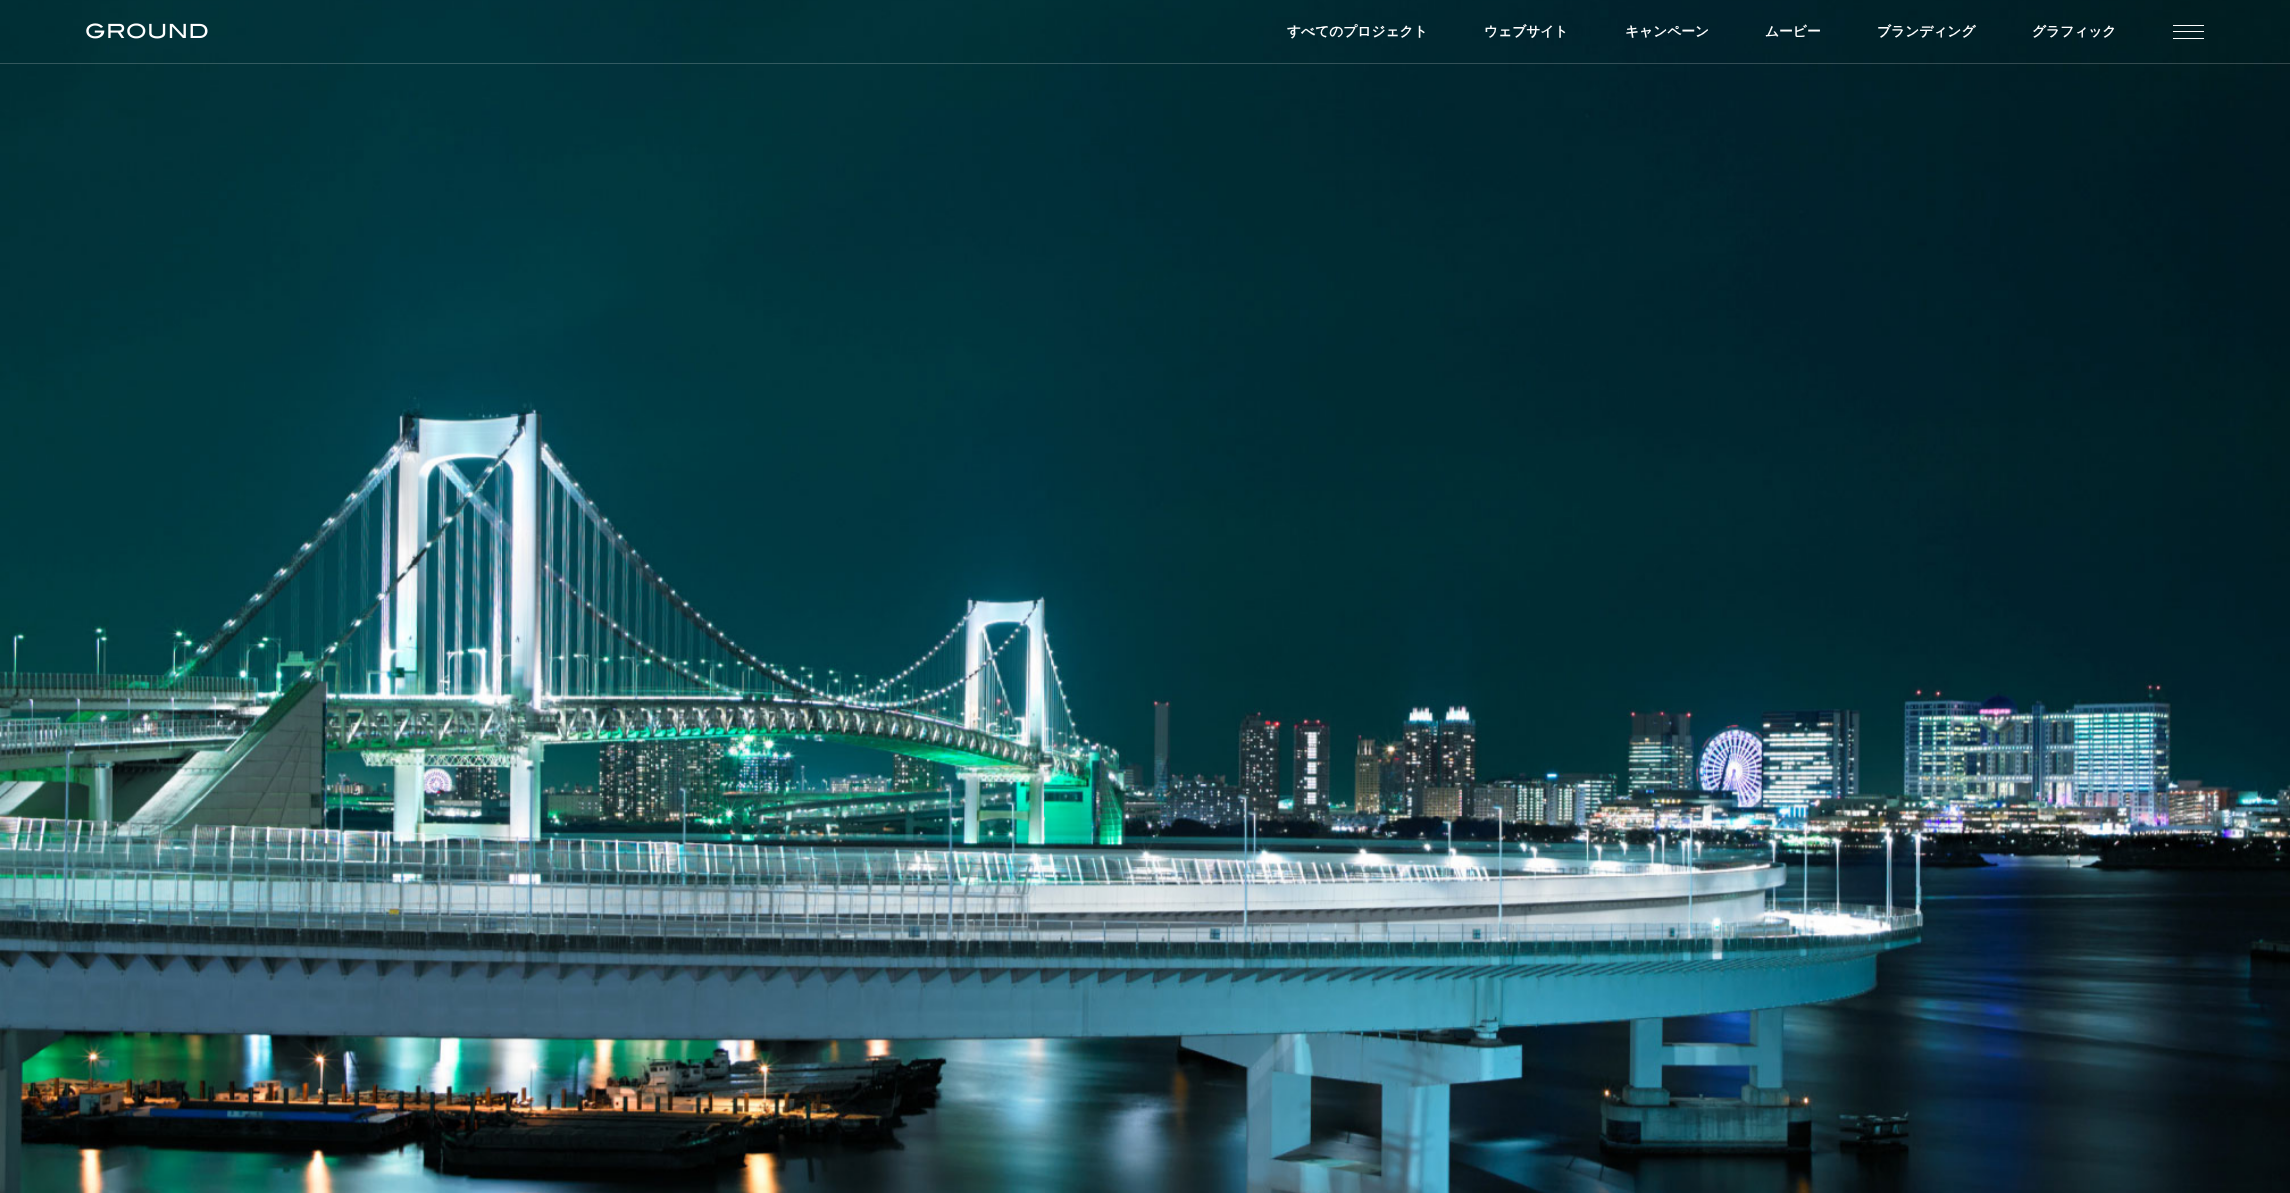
async function draw(canvas) {
  canvas.width = 2290;
  canvas.height = 1193;
  const ctx = canvas.getContext('2d');
  ctx.miterLimit = 4;
  ctx.fontKerning = 'normal';
  function label(s, x, y, font, color) {
    ctx.font = font;
    ctx.fillStyle = color;
    ctx.fillText(s, x, y);
  }
  function rect(x, y, w, h, color) {
    ctx.fillStyle = color;
    ctx.fillRect(x, y, w, h);
  }
  async function image(src, x, y, w, h) {
    const img = new Image();
    img.src = src;
    await img.decode();
    ctx.drawImage(img, x, y, w, h);
  }

  rect(0, 0, 2290, 1193, '#fff');
  await image('assets/img1.png', 0, 0, 2290, 1193);
  rect(0, 63, 2290, 1, '#ffffff33');
  await image('assets/img2.png', 86, 23, 122, 16);
  label('すべてのプロジェクト', 1287, 36, 'bold 13.75px WenQuanYi Zen Hei', '#fff');
  label('ウェブサイト', 1484, 36, 'bold 13.75px WenQuanYi Zen Hei', '#fff');
  label('キャンペーン', 1625, 36, 'bold 13.75px WenQuanYi Zen Hei', '#fff');
  label('ムービー', 1765, 36, 'bold 13.75px WenQuanYi Zen Hei', '#fff');
  label('ブランディング', 1877, 36, 'bold 13.75px WenQuanYi Zen Hei', '#fff');
  label('グラフィック', 2032, 36, 'bold 13.75px WenQuanYi Zen Hei', '#fff');
  rect(2173, 25, 31, 1, '#fff');
  rect(2173, 31, 31, 1, '#fff');
  rect(2173, 38, 31, 1, '#fff');
}

draw(document.querySelector('canvas'));
